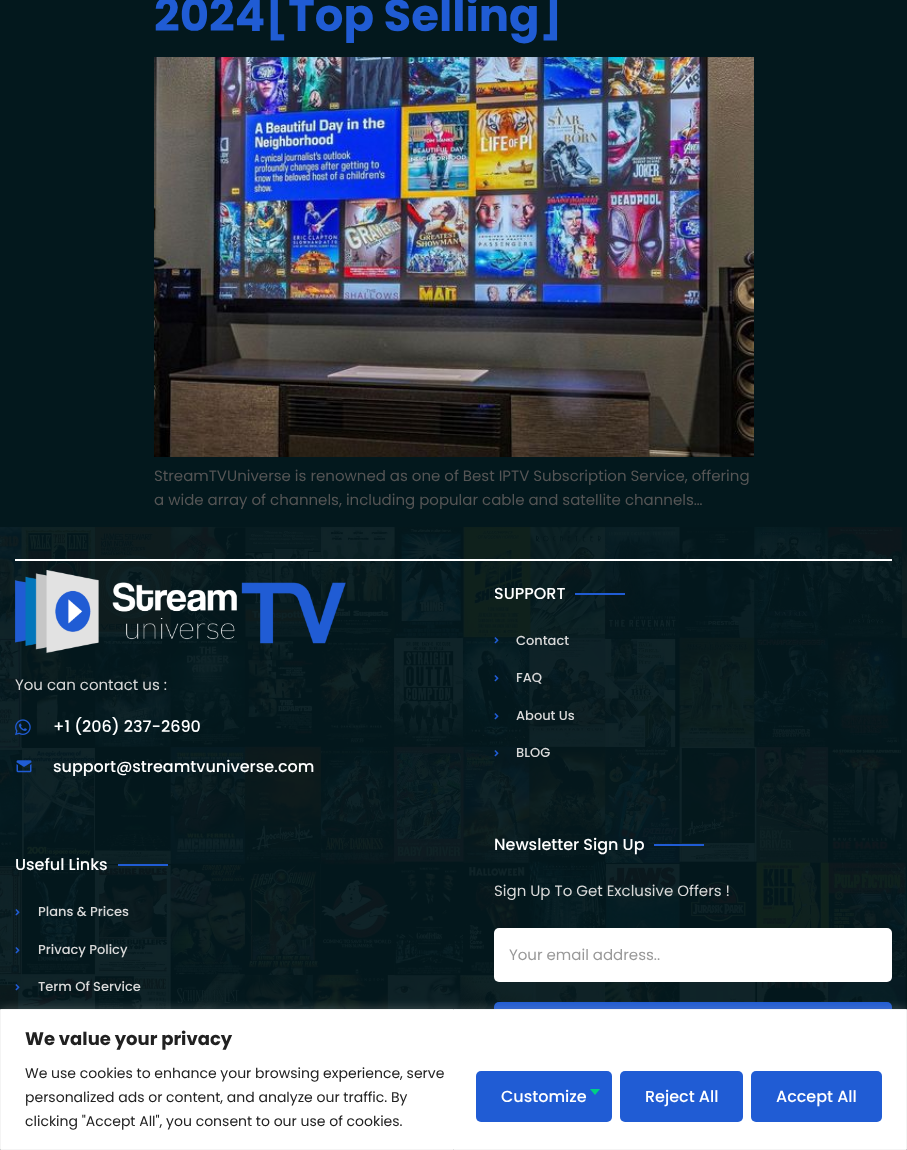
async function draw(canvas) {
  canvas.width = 907;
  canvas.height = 1150;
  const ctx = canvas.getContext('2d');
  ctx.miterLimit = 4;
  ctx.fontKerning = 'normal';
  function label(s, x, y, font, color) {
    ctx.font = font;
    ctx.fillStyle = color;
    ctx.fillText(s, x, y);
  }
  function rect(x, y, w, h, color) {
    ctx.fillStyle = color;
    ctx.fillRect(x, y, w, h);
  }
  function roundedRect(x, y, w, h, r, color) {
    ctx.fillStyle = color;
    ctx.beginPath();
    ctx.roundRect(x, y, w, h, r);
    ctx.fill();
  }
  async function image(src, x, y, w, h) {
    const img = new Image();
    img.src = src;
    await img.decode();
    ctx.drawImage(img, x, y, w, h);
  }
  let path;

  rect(0, 0, 907, 1150, '#03181d');
  label('2024[Top Selling]', 154, 31, 'bold 45px Poppins', '#205cd4');
  await image('assets/img1.png', 154, 57, 600, 400);
  label('StreamTVUniverse is renowned as one of Best IPTV Subscription Service, offering', 154, 481, '15px Poppins', '#555');
  label('a wide array of channels, including popular cable and satellite channels…', 154, 505, '15px Poppins', '#555');
  await image('assets/img2.png', 0, 527, 907, 482);
  rect(15, 559, 877, 2, '#fff');
  await image('assets/img3.png', 15, 570, 331, 83);
  label('You can contact us :', 15, 690, '15px Poppins', '#d9d9d9');
  await image('assets/img4.png', 15, 719, 16, 17);
  label('+1 (206) 237-2690', 53, 732, '500 16px Poppins', '#fff');
  await image('assets/img5.png', 16, 760, 16, 13);
  ctx.save();
  ctx.beginPath();
  ctx.rect(15, 757, 399, 19);
  ctx.clip();
  label('support@streamtvuniverse.com', 53, 772, '500 16px Poppins', '#fff');
  ctx.restore();
  label('SUPPORT', 494, 599, '500 16px Poppins', '#fff');
  rect(575, 593, 50, 2, '#205cd4');
  await image('assets/img6.png', 494, 637, 5, 7);
  label('Contact', 516, 645, '500 13px Poppins', '#d9d9d9');
  await image('assets/img7.png', 494, 675, 5, 7);
  label('FAQ', 516, 682, '500 13px Poppins', '#d9d9d9');
  await image('assets/img8.png', 494, 713, 5, 7);
  label('About Us', 516, 720, '500 13px Poppins', '#d9d9d9');
  await image('assets/img9.png', 494, 750, 5, 7);
  label('BLOG', 516, 757, '500 13px Poppins', '#d9d9d9');
  label('Useful Links', 15, 870, '500 16px Poppins', '#fff');
  rect(118, 864, 50, 2, '#205cd4');
  await image('assets/img10.png', 15, 909, 5, 7);
  label('Plans & Prices', 38, 916, '500 13px Poppins', '#d9d9d9');
  await image('assets/img11.png', 15, 947, 5, 7);
  label('Privacy Policy', 38, 954, '500 13px Poppins', '#d9d9d9');
  await image('assets/img12.png', 15, 984, 5, 7);
  label('Term Of Service', 38, 991, '500 13px Poppins', '#d9d9d9');
  label('Newsletter Sign Up', 494, 850, '500 16px Poppins', '#fff');
  rect(654, 844, 50, 2, '#205cd4');
  label('Sign Up To Get Exclusive Offers !', 494, 896, '15px Poppins', '#d9d9d9');
  roundedRect(494, 928, 398, 54, 5, '#fff');
  label('Your email address..', 509, 960, '15px Poppins', '#999');
  roundedRect(494, 1002, 398, 51, 5, '#205cd4');
  ctx.fillStyle = '#acabab4d';
  ctx.filter = 'blur(5px)';
  ctx.beginPath();
  ctx.rect(0, 1008, 907, 141);
  ctx.fill();
  ctx.filter = 'none';
  ctx.fillStyle = '#fff';
  ctx.beginPath();
  ctx.rect(0.5, 1009.5, 906, 140);
  ctx.fill();
  ctx.strokeStyle = '#f4f4f4';
  ctx.stroke();
  label('We value your privacy', 25, 1045, 'bold 18px Poppins', '#212121');
  label('We use cookies to enhance your browsing experience, serve', 25, 1078, '14px Poppins', '#212121');
  label('personalized ads or content, and analyze our traffic. By', 25, 1102, '14px Poppins', '#212121');
  label('clicking "Accept All", you consent to our use of cookies.', 25, 1126, '14px Poppins', '#212121');
  roundedRect(476, 1071, 136, 51, 5, '#205cd4');
  label('Customize', 501, 1102, '500 16px Poppins', '#fff');
  ctx.fillStyle = '#00d084';
  path = new Path2D('M590 1089H600L595 1095Z');
  ctx.fill(path);
  roundedRect(620, 1071, 123, 51, 5, '#205cd4');
  label('Reject All', 645, 1102, '500 16px Poppins', '#fff');
  roundedRect(751, 1071, 131, 51, 5, '#205cd4');
  label('Accept All', 776, 1102, '500 16px Poppins', '#fff');
}

draw(document.querySelector('canvas'));
